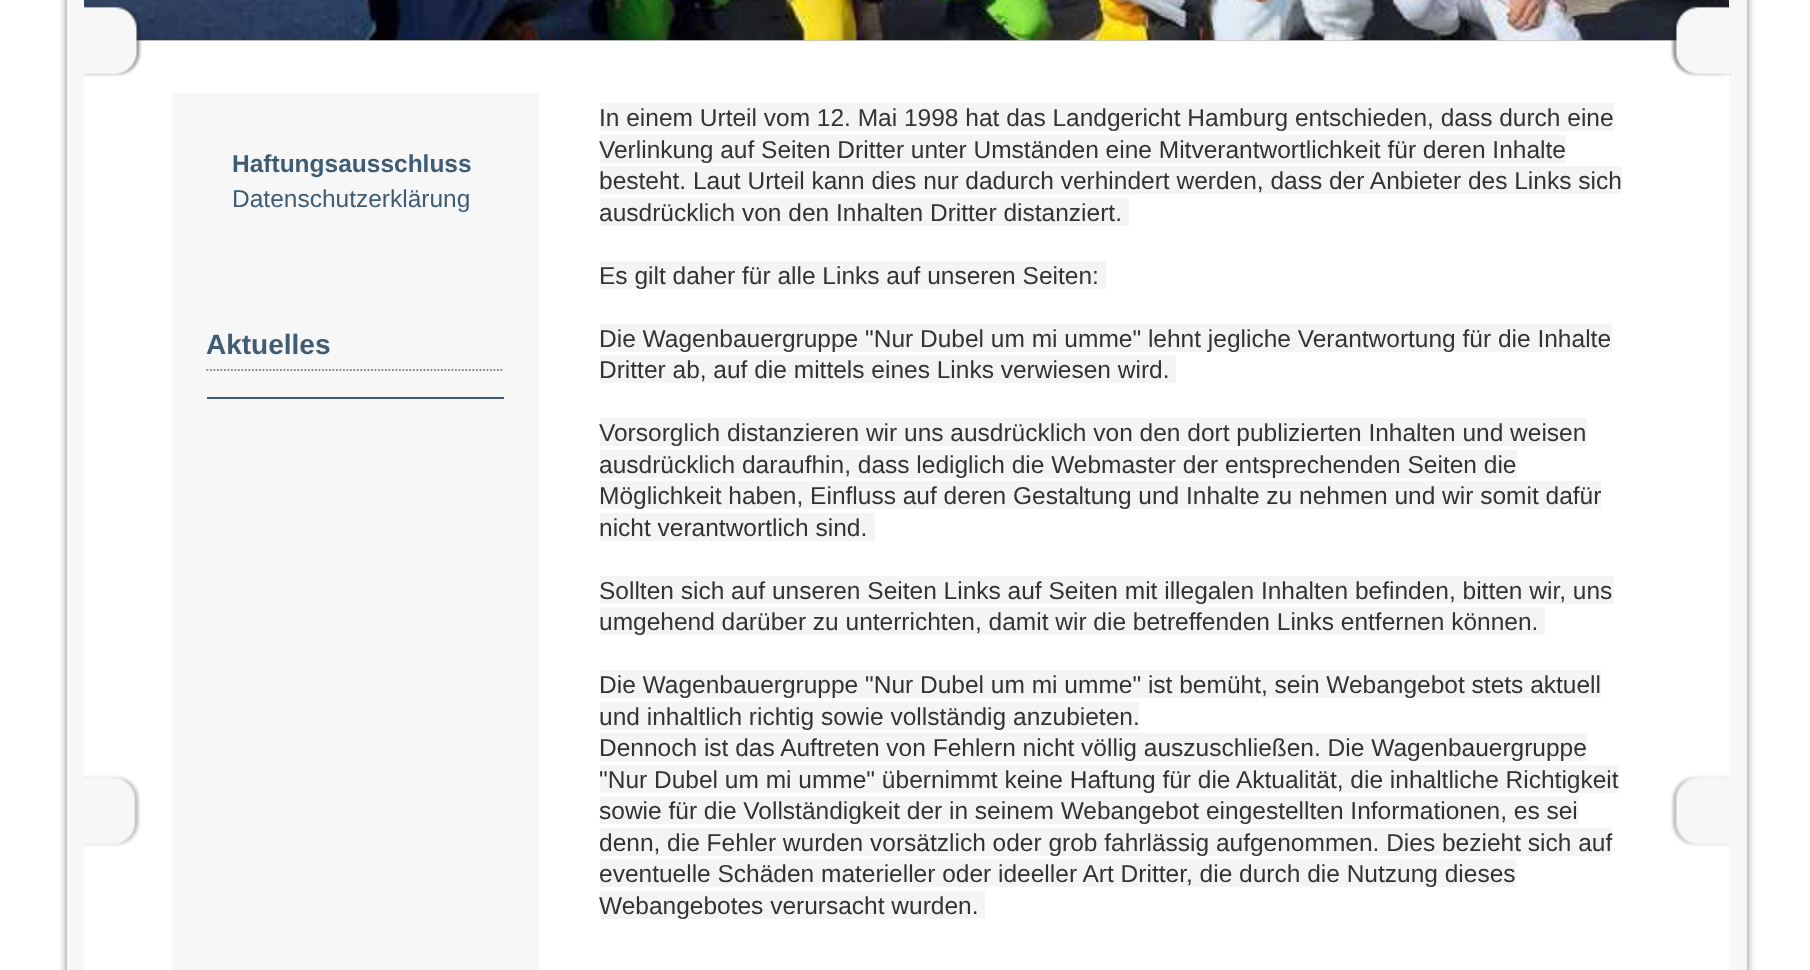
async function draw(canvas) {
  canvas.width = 1810;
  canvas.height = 970;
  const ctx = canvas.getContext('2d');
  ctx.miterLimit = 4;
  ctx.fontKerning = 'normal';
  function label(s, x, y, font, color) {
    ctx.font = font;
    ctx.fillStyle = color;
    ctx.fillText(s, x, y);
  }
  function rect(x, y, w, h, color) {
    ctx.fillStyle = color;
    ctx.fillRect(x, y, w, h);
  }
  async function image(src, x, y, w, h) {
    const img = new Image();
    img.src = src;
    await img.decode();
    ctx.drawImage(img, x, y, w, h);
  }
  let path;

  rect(0, 0, 1810, 970, '#fff');
  ctx.fillStyle = '#00000080';
  ctx.filter = 'blur(4.5px)';
  ctx.beginPath();
  ctx.rect(67, -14, 1680, 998);
  ctx.fill();
  ctx.filter = 'none';
  ctx.strokeStyle = '#f7f7f7';
  ctx.lineWidth = 18;
  ctx.strokeRect(76, -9, 1662, 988);
  await image('assets/img1.png', 84, 0, 1645, 41);
  await image('assets/img3.png', 84, 40, 1645, 930);
  await image('assets/img2.png', 83, 5, 1648, 71);
  rect(172, 93, 367, 877, '#f7f7f7');
  rect(600, 103, 1014, 28, '#f4f4f4');
  label('In einem Urteil vom 12. Mai 1998 hat das Landgericht Hamburg entschieden, dass durch eine', 599, 126, '24.5px Liberation Sans', '#333');
  rect(600, 135, 966, 28, '#f4f4f4');
  label('Verlinkung auf Seiten Dritter unter Umständen eine Mitverantwortlichkeit für deren Inhalte', 599, 158, '24.5px Liberation Sans', '#333');
  rect(600, 166, 1022, 28, '#f4f4f4');
  label('besteht. Laut Urteil kann dies nur dadurch verhindert werden, dass der Anbieter des Links sich', 599, 189, '24.5px Liberation Sans', '#333');
  rect(600, 198, 529, 28, '#f4f4f4');
  label('ausdrücklich von den Inhalten Dritter distanziert.', 599, 221, '24.5px Liberation Sans', '#333');
  rect(600, 261, 506, 28, '#f4f4f4');
  label('Es gilt daher für alle Links auf unseren Seiten:', 599, 284, '24.5px Liberation Sans', '#333');
  rect(600, 324, 1012, 28, '#f4f4f4');
  label('Die Wagenbauergruppe "Nur Dubel um mi umme" lehnt jegliche Verantwortung für die Inhalte', 599, 347, '24.5px Liberation Sans', '#333');
  rect(600, 355, 576, 28, '#f4f4f4');
  label('Dritter ab, auf die mittels eines Links verwiesen wird.', 599, 378, '24.5px Liberation Sans', '#333');
  rect(600, 418, 987, 28, '#f4f4f4');
  label('Vorsorglich distanzieren wir uns ausdrücklich von den dort publizierten Inhalten und weisen', 599, 441, '24.5px Liberation Sans', '#333');
  rect(600, 450, 917, 28, '#f4f4f4');
  label('ausdrücklich daraufhin, dass lediglich die Webmaster der entsprechenden Seiten die', 599, 473, '24.5px Liberation Sans', '#333');
  rect(600, 481, 1001, 28, '#f4f4f4');
  label('Möglichkeit haben, Einfluss auf deren Gestaltung und Inhalte zu nehmen und wir somit dafür', 599, 504, '24.5px Liberation Sans', '#333');
  rect(600, 513, 275, 28, '#f4f4f4');
  label('nicht verantwortlich sind.', 599, 536, '24.5px Liberation Sans', '#333');
  rect(600, 576, 1014, 28, '#f4f4f4');
  label('Sollten sich auf unseren Seiten Links auf Seiten mit illegalen Inhalten befinden, bitten wir, uns', 599, 599, '24.5px Liberation Sans', '#333');
  rect(600, 607, 945, 28, '#f4f4f4');
  label('umgehend darüber zu unterrichten, damit wir die betreffenden Links entfernen können.', 599, 630, '24.5px Liberation Sans', '#333');
  rect(600, 670, 1001, 28, '#f4f4f4');
  label('Die Wagenbauergruppe "Nur Dubel um mi umme" ist bemüht, sein Webangebot stets aktuell', 599, 693, '24.5px Liberation Sans', '#333');
  rect(600, 702, 539, 28, '#f4f4f4');
  label('und inhaltlich richtig sowie vollständig anzubieten.', 599, 725, '24.5px Liberation Sans', '#333');
  rect(600, 733, 987, 28, '#f4f4f4');
  label('Dennoch ist das Auftreten von Fehlern nicht völlig auszuschließen. Die Wagenbauergruppe', 599, 756, '24.5px Liberation Sans', '#333');
  rect(600, 765, 1019, 28, '#f4f4f4');
  label('"Nur Dubel um mi umme" übernimmt keine Haftung für die Aktualität, die inhaltliche Richtigkeit', 599, 788, '24.5px Liberation Sans', '#333');
  rect(600, 796, 979, 28, '#f4f4f4');
  label('sowie für die Vollständigkeit der in seinem Webangebot eingestellten Informationen, es sei', 599, 819, '24.5px Liberation Sans', '#333');
  rect(600, 828, 1012, 28, '#f4f4f4');
  label('denn, die Fehler wurden vorsätzlich oder grob fahrlässig aufgenommen. Dies bezieht sich auf', 599, 851, '24.5px Liberation Sans', '#333');
  rect(600, 859, 916, 28, '#f4f4f4');
  label('eventuelle Schäden materieller oder ideeller Art Dritter, die durch die Nutzung dieses', 599, 882, '24.5px Liberation Sans', '#333');
  rect(600, 891, 385, 28, '#f4f4f4');
  label('Webangebotes verursacht wurden.', 599, 914, '24.5px Liberation Sans', '#333');
  label('Haftungsausschluss', 232, 172, 'bold 24.5px Liberation Sans', '#405c74');
  label('Datenschutzerklärung', 232, 207, '24.5px Liberation Sans', '#405c74');
  path = new Path2D('M206.5 370H504');
  ctx.strokeStyle = '#868686';
  ctx.lineWidth = 1.8;
  ctx.setLineDash([1.75, 1.75]);
  ctx.stroke(path);
  label('Aktuelles', 206, 354, 'bold 28px Liberation Sans', '#405c74');
  rect(207, 397, 297, 2, '#405c74');
}

draw(document.querySelector('canvas'));
